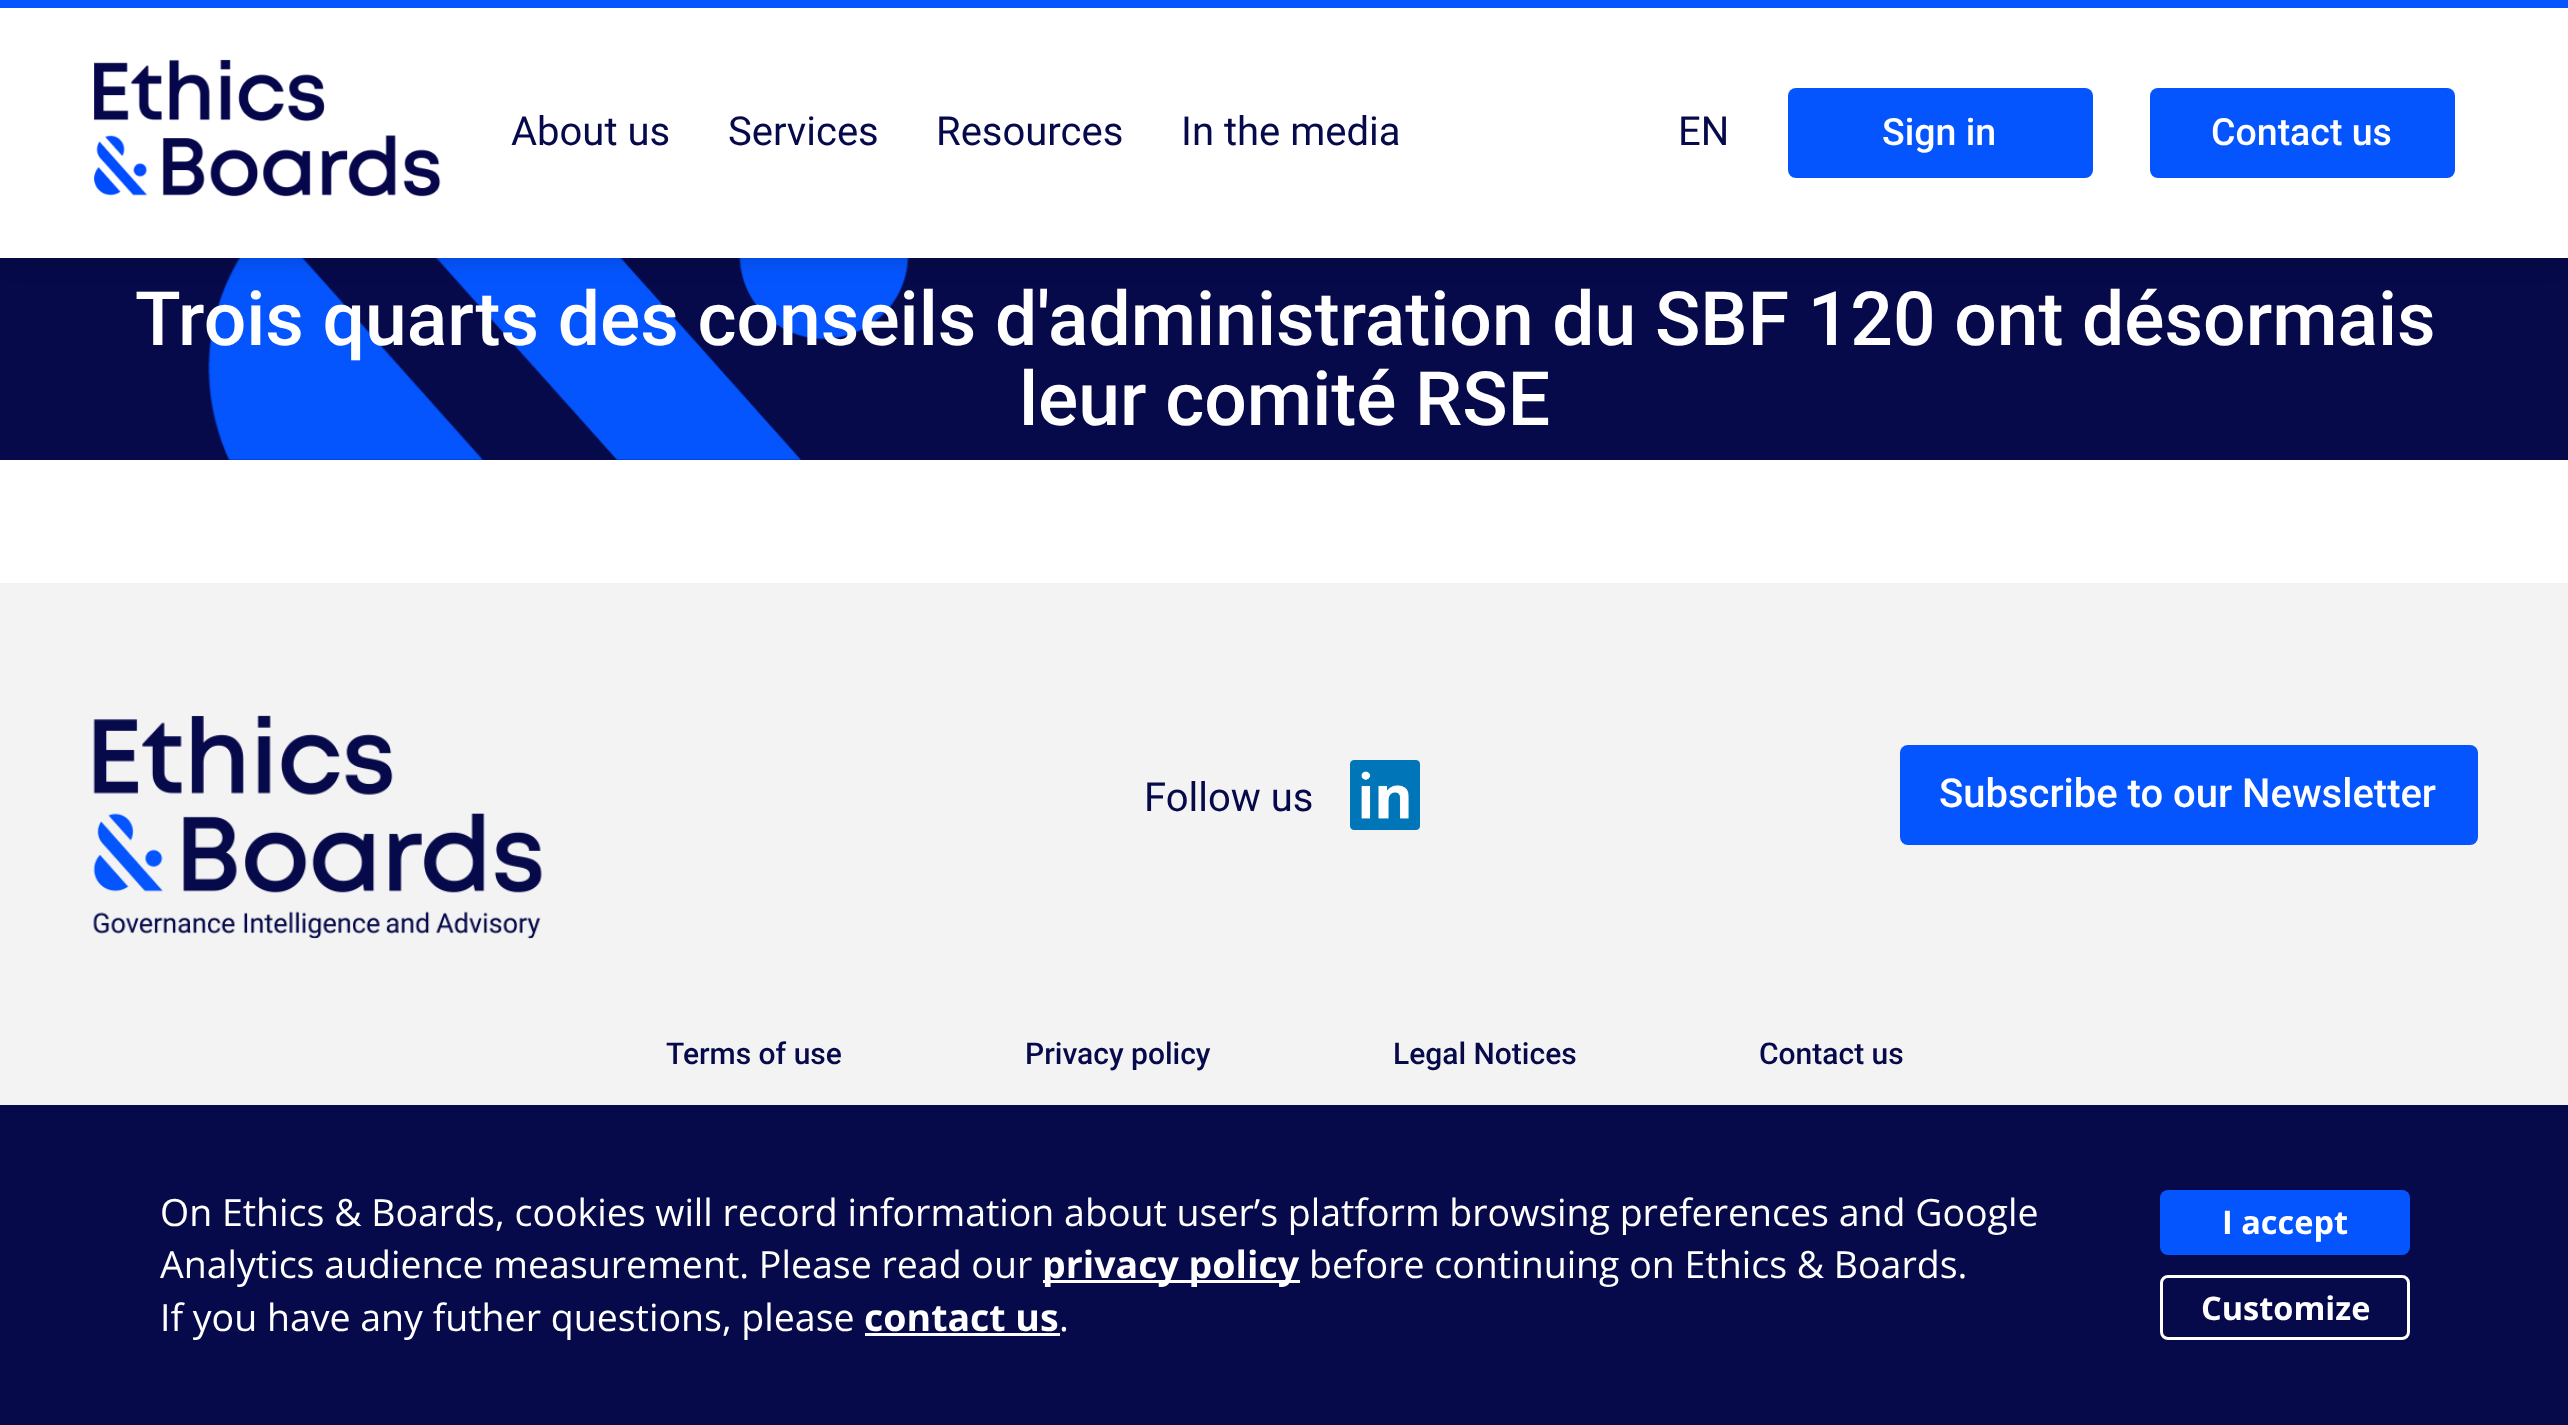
async function draw(canvas) {
  canvas.width = 2568;
  canvas.height = 1425;
  const ctx = canvas.getContext('2d');
  ctx.miterLimit = 4;
  ctx.fontKerning = 'normal';
  function label(s, x, y, font, color) {
    ctx.font = font;
    ctx.fillStyle = color;
    ctx.fillText(s, x, y);
  }
  function rect(x, y, w, h, color) {
    ctx.fillStyle = color;
    ctx.fillRect(x, y, w, h);
  }
  function roundedRect(x, y, w, h, r, color) {
    ctx.fillStyle = color;
    ctx.beginPath();
    ctx.roundRect(x, y, w, h, r);
    ctx.fill();
  }
  async function image(src, x, y, w, h) {
    const img = new Image();
    img.src = src;
    await img.decode();
    ctx.drawImage(img, x, y, w, h);
  }

  rect(0, 0, 2568, 1425, '#fff');
  rect(0, 258, 2568, 202, '#070a4a');
  await image('assets/img2.png', 208, 258, 702, 202);
  ctx.fillStyle = '#00000033';
  ctx.filter = 'blur(12.5px)';
  ctx.beginPath();
  ctx.rect(0, 8, 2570, 250);
  ctx.fill();
  ctx.filter = 'none';
  rect(0, 0, 2568, 8, '#0555ff');
  rect(0, 8, 2568, 250, '#fff');
  await image('assets/img1.png', 94, 59, 347, 138);
  label('About us', 511, 145, '40px Roboto', '#070a4a');
  label('Services', 728, 145, '40px Roboto', '#070a4a');
  label('Resources', 936, 145, '40px Roboto', '#070a4a');
  label('In the media', 1181, 145, '40px Roboto', '#070a4a');
  label('EN', 1678, 145, '40px Roboto', '#070a4a');
  roundedRect(1788, 88, 305, 90, 8, '#0555ff');
  label('Sign in', 1882, 145, '500 37.5px Roboto', '#fff');
  roundedRect(2150, 88, 305, 90, 8, '#0555ff');
  label('Contact us', 2211, 145, '500 37.5px Roboto', '#fff');
  label('Trois quarts des conseils d\'administration du SBF 120 ont désormais', 135, 345, '500 75px Roboto', '#fff');
  label('leur comité RSE', 1019, 425, '500 75px Roboto', '#fff');
  rect(0, 583, 2568, 522, '#f3f3f3');
  await image('assets/img3.png', 93, 715, 449, 224);
  label('Follow us', 1144, 811, '40px Roboto', '#070a4a');
  await image('assets/img4.png', 1350, 760, 70, 70);
  roundedRect(1900, 745, 578, 100, 8, '#0555ff');
  label('Subscribe to our Newsletter', 1939, 807, '500 40px Roboto', '#fff');
  label('Terms of use', 666, 1064, '500 30px Roboto', '#070a4a');
  label('Privacy policy', 1025, 1064, '500 30px Roboto', '#070a4a');
  label('Legal Notices', 1393, 1064, '500 30px Roboto', '#070a4a');
  label('Contact us', 1759, 1064, '500 30px Roboto', '#070a4a');
  rect(0, 1105, 2568, 320, '#070a4a');
  label('On Ethics & Boards, cookies will record information about user’s platform browsing preferences and Google', 160, 1226, '37.5px Open Sans', '#fff');
  label('Analytics audience measurement. Please read our', 160, 1278, '37.5px Open Sans', '#fff');
  rect(1043, 1280, 257, 3, '#fff');
  label('privacy policy', 1042, 1278, 'bold 37.5px Open Sans', '#fff');
  label('before continuing on Ethics & Boards.', 1309, 1278, '37.5px Open Sans', '#fff');
  label('If you have any futher questions, please', 160, 1331, '37.5px Open Sans', '#fff');
  label('contact us', 864, 1331, 'bold 37.5px Open Sans', '#fff');
  rect(865, 1333, 195, 3, '#fff');
  label('.', 1059, 1331, '37.5px Open Sans', '#fff');
  roundedRect(2160, 1190, 250, 65, 8, '#0555ff');
  label('I accept', 2222, 1234, 'bold 32.5px Open Sans', '#fff');
  ctx.beginPath();
  ctx.roundRect(2161.5, 1276.5, 247, 62, 6.5);
  ctx.strokeStyle = '#fff';
  ctx.lineWidth = 3;
  ctx.stroke();
  label('Customize', 2201, 1320, 'bold 32.5px Open Sans', '#fff');
}

draw(document.querySelector('canvas'));
